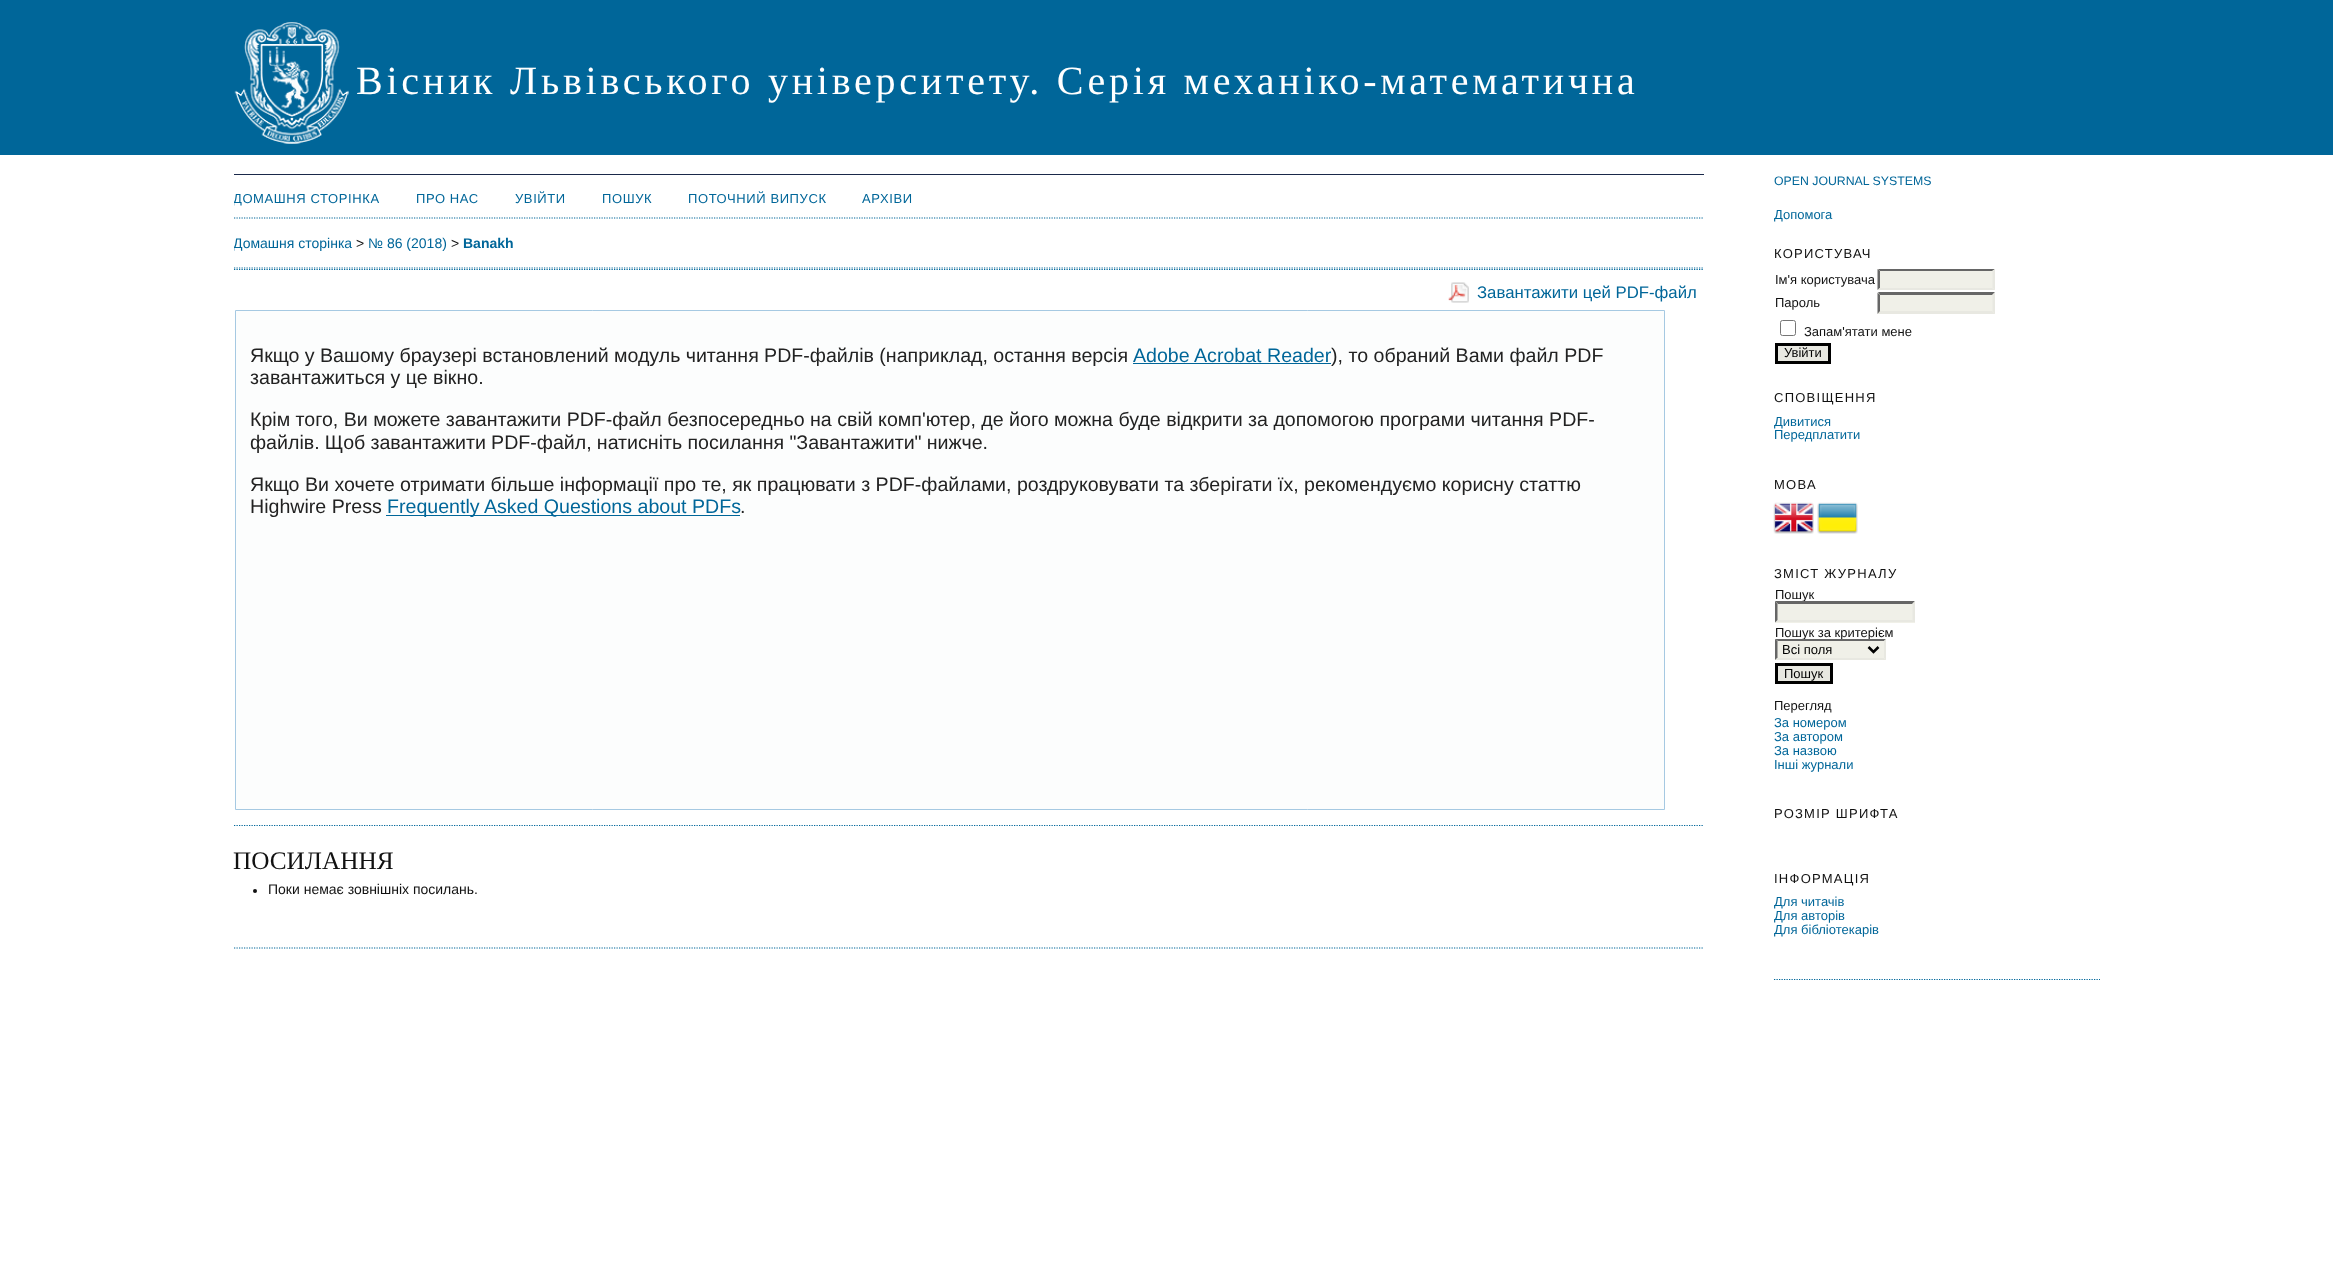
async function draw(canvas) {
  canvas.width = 2333;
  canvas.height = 1283;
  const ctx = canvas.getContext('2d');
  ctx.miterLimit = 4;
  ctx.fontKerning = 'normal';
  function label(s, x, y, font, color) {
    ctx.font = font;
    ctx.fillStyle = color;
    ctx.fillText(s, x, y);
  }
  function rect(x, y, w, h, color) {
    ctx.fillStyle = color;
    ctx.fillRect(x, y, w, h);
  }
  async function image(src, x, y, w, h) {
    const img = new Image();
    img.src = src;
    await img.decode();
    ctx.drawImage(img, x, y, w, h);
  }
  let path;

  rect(0, 0, 2333, 1283, '#fff');
  rect(0, 0, 2333, 155, '#069');
  await image('assets/img1.png', 234, 22, 115, 122);
  ctx.letterSpacing = '3.75px';
  label('Вісник Львівського університету. Серія механіко-математична', 356, 94, '40px Liberation Serif', '#fff');
  rect(234, 174, 1470, 1, '#1a294a');
  path = new Path2D('M234 948H1704');
  ctx.strokeStyle = '#069';
  ctx.lineWidth = 1.2;
  ctx.setLineDash([1.25, 1.25]);
  ctx.stroke(path);
  path = new Path2D('M234 218H1704');
  ctx.stroke(path);
  ctx.save();
  ctx.beginPath();
  ctx.rect(234, 175, 1470, 773);
  ctx.clip();
  ctx.letterSpacing = '0.6px';
  label('ДОМАШНЯ СТОРІНКА', 233, 203, '13px Liberation Sans', '#069');
  ctx.restore();
  ctx.letterSpacing = '0.6px';
  label('ПРО НАС', 416, 203, '13px Liberation Sans', '#069');
  label('УВІЙТИ', 515, 203, '13px Liberation Sans', '#069');
  label('ПОШУК', 602, 203, '13px Liberation Sans', '#069');
  label('ПОТОЧНИЙ ВИПУСК', 688, 203, '13px Liberation Sans', '#069');
  label('АРХІВИ', 862, 203, '13px Liberation Sans', '#069');
  path = new Path2D('M234 268H1704');
  ctx.stroke(path);
  ctx.save();
  ctx.beginPath();
  ctx.rect(234, 175, 1470, 773);
  ctx.clip();
  ctx.letterSpacing = '0px';
  label('Домашня сторінка', 233, 248, '14px Liberation Sans', '#069');
  ctx.restore();
  ctx.letterSpacing = '0px';
  label('>', 356, 248, '14px Liberation Sans', '#111');
  label('№ 86 (2018)', 368, 248, '14px Liberation Sans', '#069');
  label('>', 451, 248, '14px Liberation Sans', '#111');
  label('Banakh', 463, 248, 'bold 14px Liberation Sans', '#069');
  path = new Path2D('M234 269.5H1704');
  ctx.stroke(path);
  await image('assets/img2.png', 1448, 282, 21, 21);
  label('Завантажити цей PDF-файл', 1477, 298, '16.75px Liberation Sans', '#069');
  ctx.fillStyle = '#fcfdfd';
  ctx.beginPath();
  ctx.rect(235.5, 310.5, 1429, 499);
  ctx.fill();
  ctx.strokeStyle = '#a6c9e2';
  ctx.lineWidth = 1;
  ctx.setLineDash([]);
  ctx.stroke();
  ctx.wordSpacing = '-0.1px';
  label('Якщо у Вашому браузері встановлений модуль читання PDF-файлів (наприклад, остання версія', 250, 362, '19.6px Liberation Sans', '#222');
  ctx.wordSpacing = '0px';
  label('Adobe Acrobat Reader', 1133, 362, '19.6px Liberation Sans', '#069');
  rect(1133, 363, 198, 1, '#069');
  label('), то обраний Вами файл PDF', 1331, 362, '19.6px Liberation Sans', '#222');
  label('завантажиться у це вікно.', 250, 384, '19.6px Liberation Sans', '#222');
  label('Крім того, Ви можете завантажити PDF-файл безпосередньо на свій комп\'ютер, де його можна буде відкрити за допомогою програми читання PDF-', 250, 426, '19.6px Liberation Sans', '#222');
  ctx.wordSpacing = '-0.25px';
  label('файлів. Щоб завантажити PDF-файл, натисніть посилання "Завантажити" нижче.', 250, 449, '19.6px Liberation Sans', '#222');
  ctx.wordSpacing = '0px';
  label('Якщо Ви хочете отримати більше інформації про те, як працювати з PDF-файлами, роздруковувати та зберігати їх, рекомендуємо корисну статтю', 250, 491, '19.6px Liberation Sans', '#222');
  label('Highwire Press', 250, 513, '19.6px Liberation Sans', '#222');
  rect(386, 515, 354, 1, '#069');
  label('Frequently Asked Questions about PDFs', 387, 513, '19.6px Liberation Sans', '#069');
  label('.', 740, 513, '19.6px Liberation Sans', '#222');
  path = new Path2D('M234 825.5H1704');
  ctx.strokeStyle = '#069';
  ctx.lineWidth = 1.2;
  ctx.setLineDash([1.25, 1.25]);
  ctx.stroke(path);
  label('ПОСИЛАННЯ', 233, 869, '25.25px Liberation Serif', '#111');
  ctx.beginPath();
  ctx.arc(255, 891, 2, 0, 2 * Math.PI);
  ctx.fill();
  label('Поки немає зовнішніх посилань.', 268, 894, '14px Liberation Sans', '#111');
  path = new Path2D('M1774 979.5H2100');
  ctx.stroke(path);
  label('OPEN JOURNAL SYSTEMS', 1774, 185, '12.3px Liberation Sans', '#069');
  label('Допомога', 1774, 219, '13px Liberation Sans', '#069');
  ctx.letterSpacing = '1.25px';
  label('КОРИСТУВАЧ', 1774, 258, '13px Liberation Sans', '#111');
  ctx.letterSpacing = '0px';
  label('Ім\'я користувача', 1775, 284, '13px Liberation Sans', '#111');
  rect(1878, 269, 117, 21, '#f0f0e8');
  ctx.fillStyle = '#666';
  path = new Path2D('M1878 269H1995L1992 271H1880Z');
  ctx.fill(path);
  ctx.fillStyle = '#e8e8e1';
  path = new Path2D('M1995 269V290L1992.5 287.5V271Z');
  ctx.fill(path);
  path = new Path2D('M1995 290H1878L1880 288H1992Z');
  ctx.fill(path);
  ctx.fillStyle = '#666';
  path = new Path2D('M1877.5 290V269L1880 271V287.5Z');
  ctx.fill(path);
  label('Пароль', 1775, 307, '13px Liberation Sans', '#111');
  rect(1878, 293, 117, 21, '#f0f0e8');
  ctx.fillStyle = '#666';
  path = new Path2D('M1878 292H1995L1992 295H1880Z');
  ctx.fill(path);
  ctx.fillStyle = '#e8e8e1';
  path = new Path2D('M1995 292.5V314L1992.5 311V295Z');
  ctx.fill(path);
  path = new Path2D('M1995 314H1878L1880 311H1992Z');
  ctx.fill(path);
  ctx.fillStyle = '#666';
  path = new Path2D('M1877.5 314V292.5L1880 295V311Z');
  ctx.fill(path);
  ctx.beginPath();
  ctx.roundRect(1780.5, 320.5, 15, 15, 2);
  ctx.strokeStyle = '#767676';
  ctx.lineWidth = 1;
  ctx.setLineDash([]);
  ctx.stroke();
  label('Запам\'ятати мене', 1804, 336, '13px Liberation Sans', '#111');
  ctx.fillStyle = '#e8e8e1';
  ctx.beginPath();
  ctx.rect(1776.5, 344.5, 53, 18);
  ctx.fill();
  ctx.strokeStyle = '#000';
  ctx.lineWidth = 3;
  ctx.stroke();
  label('Увійти', 1784, 357, '13px Liberation Sans', '#000');
  ctx.letterSpacing = '1.25px';
  label('СПОВІЩЕННЯ', 1774, 402, '13px Liberation Sans', '#111');
  ctx.letterSpacing = '0px';
  label('Дивитися', 1774, 426, '13px Liberation Sans', '#069');
  label('Передплатити', 1774, 439, '13px Liberation Sans', '#069');
  ctx.letterSpacing = '1.25px';
  label('МОВА', 1774, 489, '13px Liberation Sans', '#111');
  await image('assets/img3.png', 1773, 502, 41, 32);
  await image('assets/img4.png', 1817, 502, 41, 32);
  label('ЗМІСТ ЖУРНАЛУ', 1774, 578, '13px Liberation Sans', '#111');
  ctx.letterSpacing = '0px';
  label('Пошук', 1775, 599, '13px Liberation Sans', '#111');
  rect(1775, 601, 140, 22, '#f0f0e8');
  ctx.fillStyle = '#666';
  path = new Path2D('M1775 601H1915L1912 604H1778Z');
  ctx.fill(path);
  ctx.fillStyle = '#e8e8e1';
  path = new Path2D('M1915 601V622.5L1912.5 620V604Z');
  ctx.fill(path);
  path = new Path2D('M1915 622H1775L1778 620H1912Z');
  ctx.fill(path);
  ctx.fillStyle = '#666';
  path = new Path2D('M1775 622.5V601L1777.5 604V620Z');
  ctx.fill(path);
  label('Пошук за критерієм', 1775, 637, '13px Liberation Sans', '#111');
  rect(1775, 639, 111, 21, '#f0f0e8');
  ctx.fillStyle = '#666';
  path = new Path2D('M1775 639H1886L1884 641H1778Z');
  ctx.fill(path);
  ctx.fillStyle = '#e8e8e1';
  path = new Path2D('M1886 639V660L1884 657.5V641Z');
  ctx.fill(path);
  path = new Path2D('M1886 660H1775L1778 658H1884Z');
  ctx.fill(path);
  ctx.fillStyle = '#666';
  path = new Path2D('M1775 660V639L1777.5 641V657.5Z');
  ctx.fill(path);
  path = new Path2D('M1868.5 647L1873.5 652L1878.5 647');
  ctx.lineWidth = 2.5;
  ctx.stroke(path);
  label('Всі поля', 1782, 654, '13px Liberation Sans', '#000');
  ctx.fillStyle = '#e8e8e1';
  ctx.beginPath();
  ctx.rect(1776.5, 664.5, 55, 18);
  ctx.fill();
  ctx.lineWidth = 3;
  ctx.stroke();
  label('Пошук', 1784, 678, '13px Liberation Sans', '#000');
  label('Перегляд', 1774, 710, '13px Liberation Sans', '#111');
  label('За номером', 1774, 727, '13px Liberation Sans', '#069');
  label('За автором', 1774, 741, '13px Liberation Sans', '#069');
  label('За назвою', 1774, 755, '13px Liberation Sans', '#069');
  label('Інші журнали', 1774, 769, '13px Liberation Sans', '#069');
  ctx.letterSpacing = '1.25px';
  label('РОЗМІР ШРИФТА', 1774, 818, '13px Liberation Sans', '#111');
  label('ІНФОРМАЦІЯ', 1774, 883, '13px Liberation Sans', '#111');
  ctx.letterSpacing = '0px';
  label('Для читачів', 1774, 906, '13px Liberation Sans', '#069');
  label('Для авторів', 1774, 920, '13px Liberation Sans', '#069');
  label('Для бібліотекарів', 1774, 934, '13px Liberation Sans', '#069');
}

draw(document.querySelector('canvas'));
